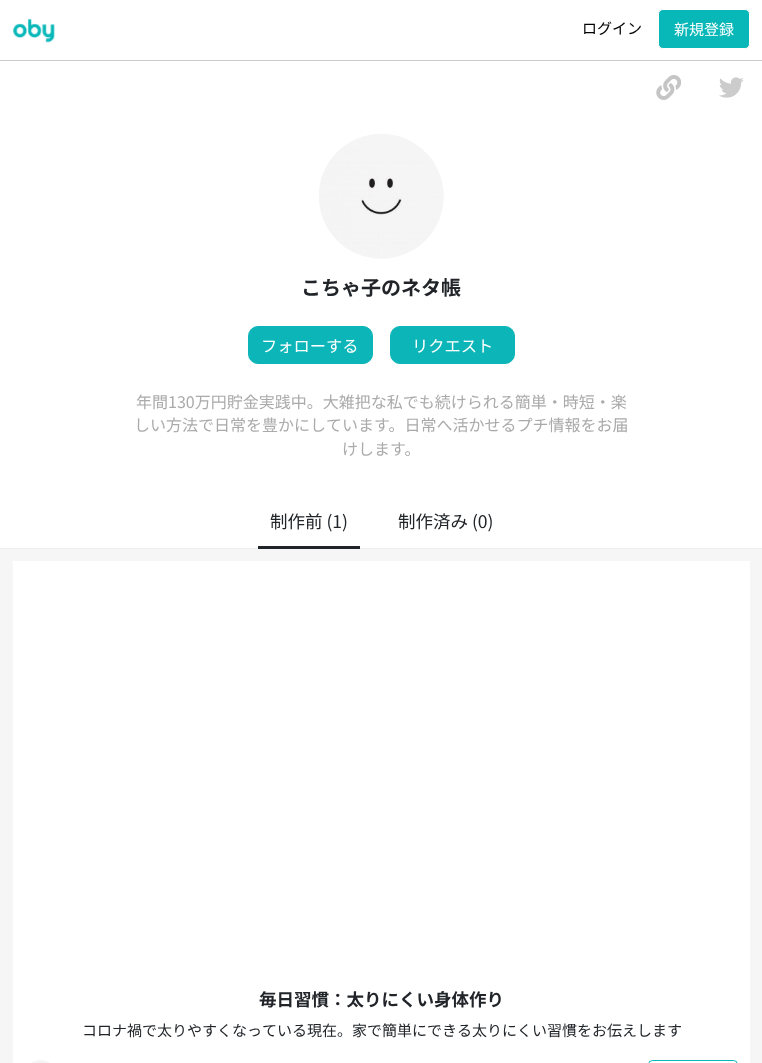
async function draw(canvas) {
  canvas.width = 762;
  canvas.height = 1063;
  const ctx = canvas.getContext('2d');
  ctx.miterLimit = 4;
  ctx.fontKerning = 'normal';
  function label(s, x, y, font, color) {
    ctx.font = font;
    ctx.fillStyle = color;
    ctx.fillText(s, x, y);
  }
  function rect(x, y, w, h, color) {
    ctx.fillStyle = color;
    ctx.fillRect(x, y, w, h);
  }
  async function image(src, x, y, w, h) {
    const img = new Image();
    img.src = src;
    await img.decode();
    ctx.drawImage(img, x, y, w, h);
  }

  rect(0, 0, 762, 1063, '#f6f6f6');
  rect(0, 0, 762, 60, '#fff');
  rect(0, 60, 762, 1, '#ccc');
  await image('assets/img1.png', 12, 18, 43, 25);
  label('ログイン', 582, 34, '15px Noto Sans JP', '#000');
  ctx.fillStyle = '#08b7b8';
  ctx.beginPath();
  ctx.roundRect(658.5, 9.5, 91, 39, 4.5);
  ctx.fill();
  ctx.strokeStyle = '#fff';
  ctx.stroke();
  label('新規登録', 674, 35, '15px Noto Sans JP', '#fff');
  rect(0, 61, 762, 487, '#fff');
  await image('assets/img2.png', 656, 75, 25, 25);
  await image('assets/img3.png', 719, 77, 25, 21);
  rect(0, 548, 762, 1, '#eee');
  await image('assets/img4.png', 319, 134, 125, 125);
  label('こちゃ子のネタ帳', 301, 295, 'bold 20px Noto Sans JP', '#212529');
  ctx.fillStyle = '#0cb6b8';
  ctx.beginPath();
  ctx.roundRect(248.5, 326.5, 124, 37, 9.5);
  ctx.fill();
  ctx.strokeStyle = '#0cb6b8';
  ctx.stroke();
  label('フォローする', 261, 352, '16.25px Noto Sans JP', '#fff');
  ctx.fillStyle = '#0cb6b8';
  ctx.beginPath();
  ctx.roundRect(390.5, 326.5, 124, 37, 9.5);
  ctx.fill();
  ctx.stroke();
  label('リクエスト', 412, 352, '16.25px Noto Sans JP', '#fff');
  label('年間130万円貯金実践中。大雑把な私でも続けられる簡単・時短・楽', 136, 408, '16px Noto Sans JP', '#aaa');
  label('しい方法で日常を豊かにしています。日常へ活かせるプチ情報をお届', 134, 431, '16px Noto Sans JP', '#aaa');
  label('けします。', 342, 455, '16px Noto Sans JP', '#aaa');
  label('制作前 (1)', 270, 528, '17.5px Noto Sans JP', '#212529');
  rect(258, 546, 102, 3, '#212529');
  label('制作済み (0)', 398, 528, '17.5px Noto Sans JP', '#212529');
  rect(13, 561, 737, 502, '#fff');
  label('毎日習慣：太りにくい身体作り', 259, 1006, 'bold 17.5px Noto Sans JP', '#212529');
  label('コロナ禍で太りやすくなっている現在。家で簡単にできる太りにくい習慣をお伝えします', 82, 1036, '15px Noto Sans JP', '#212529');
  await image('assets/img5.png', 32, 1060, 18, 3);
  ctx.beginPath();
  ctx.roundRect(648.5, 1060.5, 89, 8, 4.5);
  ctx.strokeStyle = '#08b7b8';
  ctx.stroke();
}

draw(document.querySelector('canvas'));
